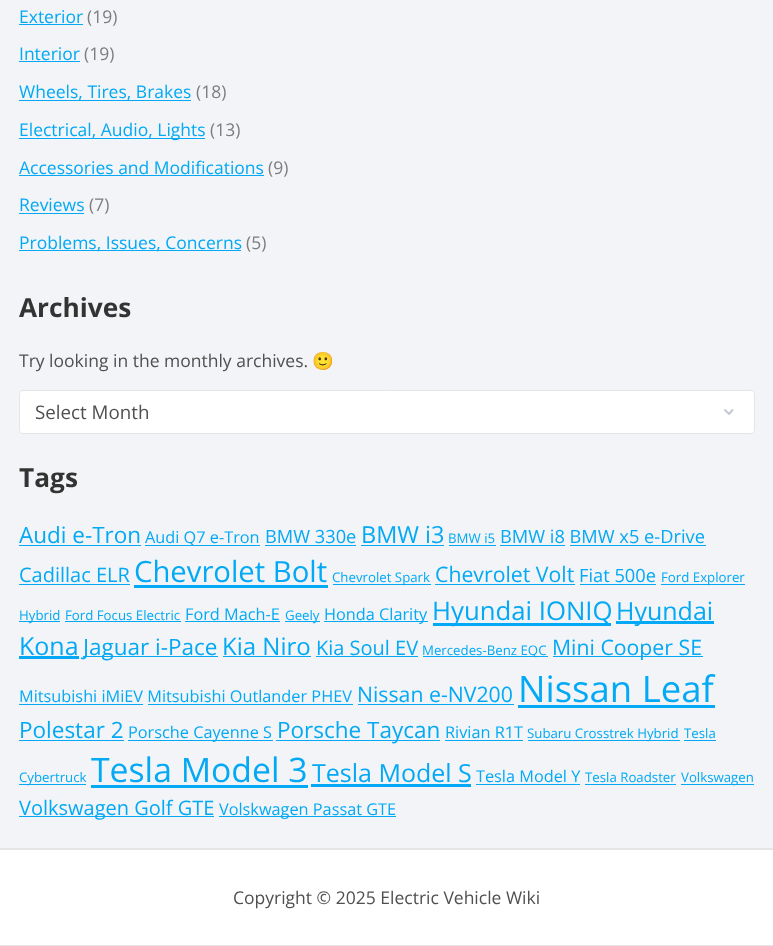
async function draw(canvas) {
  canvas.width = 773;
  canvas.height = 946;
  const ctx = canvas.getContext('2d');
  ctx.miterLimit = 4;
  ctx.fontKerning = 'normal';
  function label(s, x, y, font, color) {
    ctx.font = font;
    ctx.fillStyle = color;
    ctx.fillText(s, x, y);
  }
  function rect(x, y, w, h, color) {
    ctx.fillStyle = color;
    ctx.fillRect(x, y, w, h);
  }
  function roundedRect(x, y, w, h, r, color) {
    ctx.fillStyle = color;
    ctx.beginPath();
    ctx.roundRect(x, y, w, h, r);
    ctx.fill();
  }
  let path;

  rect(0, 0, 773, 946, '#f2f4f7');
  label('Exterior', 19, 23, '17.5px Open Sans', '#03a9f4');
  rect(19, 24, 64, 1, '#03a9f4');
  label('(19)', 87, 23, '17.5px Open Sans', '#7d7d7d');
  label('Interior', 19, 60, '17.5px Open Sans', '#03a9f4');
  rect(19, 61, 61, 1, '#03a9f4');
  label('(19)', 84, 60, '17.5px Open Sans', '#7d7d7d');
  rect(19, 100, 172, 1, '#03a9f4');
  label('Wheels, Tires, Brakes', 19, 98, '17.5px Open Sans', '#03a9f4');
  label('(18)', 196, 98, '17.5px Open Sans', '#7d7d7d');
  rect(19, 138, 186, 1, '#03a9f4');
  label('Electrical, Audio, Lights', 19, 136, '17.5px Open Sans', '#03a9f4');
  label('(13)', 210, 136, '17.5px Open Sans', '#7d7d7d');
  label('Accessories and Modifications', 19, 174, '17.5px Open Sans', '#03a9f4');
  rect(19, 175, 245, 1, '#03a9f4');
  label('(9)', 268, 174, '17.5px Open Sans', '#7d7d7d');
  label('Reviews', 19, 211, '17.5px Open Sans', '#03a9f4');
  rect(19, 213, 65, 1, '#03a9f4');
  label('(7)', 89, 211, '17.5px Open Sans', '#7d7d7d');
  rect(19, 250, 222, 1, '#03a9f4');
  label('Problems, Issues, Concerns', 19, 249, '17.5px Open Sans', '#03a9f4');
  label('(5)', 246, 249, '17.5px Open Sans', '#7d7d7d');
  label('Archives', 19, 317, 'bold 26.25px Open Sans', '#333');
  label('Try looking in the monthly archives.', 19, 367, '17.5px Open Sans', '#505050');
  label('🙂', 312, 367, '17.5px Noto Color Emoji', '#505050');
  roundedRect(19, 390, 736, 44, 4, '#fff');
  path = new Path2D('M732.5 410L729 414L725 410');
  ctx.strokeStyle = '#c4cad1';
  ctx.lineWidth = 1.9;
  ctx.lineCap = 'round';
  ctx.lineJoin = 'round';
  ctx.stroke(path);
  ctx.beginPath();
  ctx.roundRect(19.5, 390.5, 735, 43, 3.5);
  ctx.strokeStyle = '#e5e5e5';
  ctx.lineWidth = 1;
  ctx.lineJoin = 'miter';
  ctx.stroke();
  label('Select Month', 35, 419, '18.75px Open Sans', '#505050');
  label('Tags', 19, 487, 'bold 26.25px Open Sans', '#333');
  label('Audi e-Tron', 19, 543, '22.5px Open Sans', '#03a9f4');
  rect(19, 545, 122, 1, '#03a9f4');
  rect(145, 545, 115, 1, '#03a9f4');
  label('Audi Q7 e-Tron', 145, 543, '16.3px Open Sans', '#03a9f4');
  label('BMW 330e', 265, 543, '18.25px Open Sans', '#03a9f4');
  rect(265, 545, 91, 1, '#03a9f4');
  label('BMW i3', 361, 543, '23.5px Open Sans', '#03a9f4');
  rect(361, 545, 83, 1, '#03a9f4');
  label('BMW i5', 448, 543, '13.25px Open Sans', '#03a9f4');
  rect(449, 545, 47, 1, '#03a9f4');
  label('BMW i8 BMW x5 e-Drive', 500, 543, '18.25px Open Sans', '#03a9f4');
  rect(500, 545, 65, 1, '#03a9f4');
  rect(570, 545, 136, 1, '#03a9f4');
  label('Cadillac ELR', 19, 582, '20px Open Sans', '#03a9f4');
  rect(19, 584, 111, 1, '#03a9f4');
  label('Chevrolet Bolt', 134, 582, '29.25px Open Sans', '#03a9f4');
  rect(134, 585, 194, 3, '#03a9f4');
  rect(333, 584, 98, 1, '#03a9f4');
  label('Chevrolet Spark', 332, 582, '13.25px Open Sans', '#03a9f4');
  label('Chevrolet Volt', 435, 582, '21.25px Open Sans', '#03a9f4');
  rect(435, 584, 140, 1, '#03a9f4');
  label('Fiat 500e', 579, 582, '18.25px Open Sans', '#03a9f4');
  rect(580, 584, 76, 1, '#03a9f4');
  rect(661, 584, 84, 1, '#03a9f4');
  label('Ford Explorer', 661, 582, '13.25px Open Sans', '#03a9f4');
  rect(19, 621, 41, 1, '#03a9f4');
  label('Hybrid', 19, 620, '13.25px Open Sans', '#03a9f4');
  label('Ford Focus Electric', 65, 620, '13.25px Open Sans', '#03a9f4');
  rect(65, 621, 116, 1, '#03a9f4');
  label('Ford Mach-E', 185, 620, '16.3px Open Sans', '#03a9f4');
  rect(185, 621, 95, 1, '#03a9f4');
  rect(285, 621, 35, 1, '#03a9f4');
  label('Geely', 285, 620, '13.25px Open Sans', '#03a9f4');
  rect(324, 621, 104, 1, '#03a9f4');
  label('Honda Clarity', 324, 620, '16.3px Open Sans', '#03a9f4');
  rect(433, 623, 178, 3, '#03a9f4');
  label('Hyundai IONIQ', 432, 620, '25.75px Open Sans', '#03a9f4');
  rect(616, 621, 98, 3, '#03a9f4');
  label('Hyundai', 616, 620, '25px Open Sans', '#03a9f4');
  label('Kona', 19, 655, '25px Open Sans', '#03a9f4');
  rect(19, 656, 60, 3, '#03a9f4');
  rect(83, 656, 135, 1, '#03a9f4');
  label('Jaguar i-Pace', 83, 655, '22.5px Open Sans', '#03a9f4');
  label('Kia Niro', 222, 655, '24px Open Sans', '#03a9f4');
  rect(223, 656, 88, 1, '#03a9f4');
  label('Kia Soul EV', 316, 655, '20px Open Sans', '#03a9f4');
  rect(316, 656, 102, 1, '#03a9f4');
  rect(423, 656, 125, 1, '#03a9f4');
  label('Mercedes-Benz EQC', 422, 655, '13.25px Open Sans', '#03a9f4');
  rect(553, 656, 150, 1, '#03a9f4');
  label('Mini Cooper SE', 552, 655, '21.25px Open Sans', '#03a9f4');
  label('Mitsubishi iMiEV Mitsubishi Outlander PHEV', 19, 702, '16.3px Open Sans', '#03a9f4');
  rect(19, 704, 124, 1, '#03a9f4');
  label('Nissan e-NV200', 357, 702, '21.25px Open Sans', '#03a9f4');
  rect(358, 704, 156, 1, '#03a9f4');
  label('Nissan Leaf', 518, 702, '36.5px Open Sans', '#03a9f4');
  rect(518, 705, 197, 3, '#03a9f4');
  rect(148, 704, 205, 1, '#03a9f4');
  label('Polestar 2', 19, 738, '22.5px Open Sans', '#03a9f4');
  rect(19, 740, 105, 1, '#03a9f4');
  rect(128, 740, 145, 1, '#03a9f4');
  label('Porsche Cayenne S', 128, 738, '16.3px Open Sans', '#03a9f4');
  rect(276, 740, 164, 1, '#03a9f4');
  label('Porsche Taycan', 277, 738, '22.5px Open Sans', '#03a9f4');
  label('Rivian R1T', 445, 738, '16.3px Open Sans', '#03a9f4');
  rect(445, 740, 78, 1, '#03a9f4');
  rect(528, 740, 152, 1, '#03a9f4');
  label('Subaru Crosstrek Hybrid', 527, 738, '13.25px Open Sans', '#03a9f4');
  label('Tesla', 684, 738, '13.25px Open Sans', '#03a9f4');
  rect(684, 740, 32, 1, '#03a9f4');
  rect(19, 784, 67, 1, '#03a9f4');
  label('Cybertruck', 19, 782, '13.25px Open Sans', '#03a9f4');
  label('Tesla Model 3', 91, 782, '33.75px Open Sans', '#03a9f4');
  rect(91, 785, 217, 3, '#03a9f4');
  label('Tesla Model S', 312, 782, '25px Open Sans', '#03a9f4');
  rect(311, 784, 160, 3, '#03a9f4');
  label('Tesla Model Y', 476, 782, '16.3px Open Sans', '#03a9f4');
  rect(476, 784, 104, 1, '#03a9f4');
  label('Tesla Roadster', 585, 782, '13.25px Open Sans', '#03a9f4');
  rect(585, 784, 91, 1, '#03a9f4');
  rect(681, 784, 73, 1, '#03a9f4');
  label('Volkswagen', 681, 782, '13.25px Open Sans', '#03a9f4');
  rect(19, 816, 195, 1, '#03a9f4');
  label('Volkswagen Golf GTE', 19, 815, '20px Open Sans', '#03a9f4');
  rect(219, 816, 177, 1, '#03a9f4');
  label('Volskwagen Passat GTE', 219, 815, '16.3px Open Sans', '#03a9f4');
  rect(0, 850, 773, 95, '#fff');
  rect(0, 848, 773, 2, '#e5e5e5');
  rect(0, 945, 773, 1, '#e5e5e5');
  label('Copyright © 2025 Electric Vehicle Wiki', 233, 904, '17.5px Open Sans', '#505050');
}

draw(document.querySelector('canvas'));
